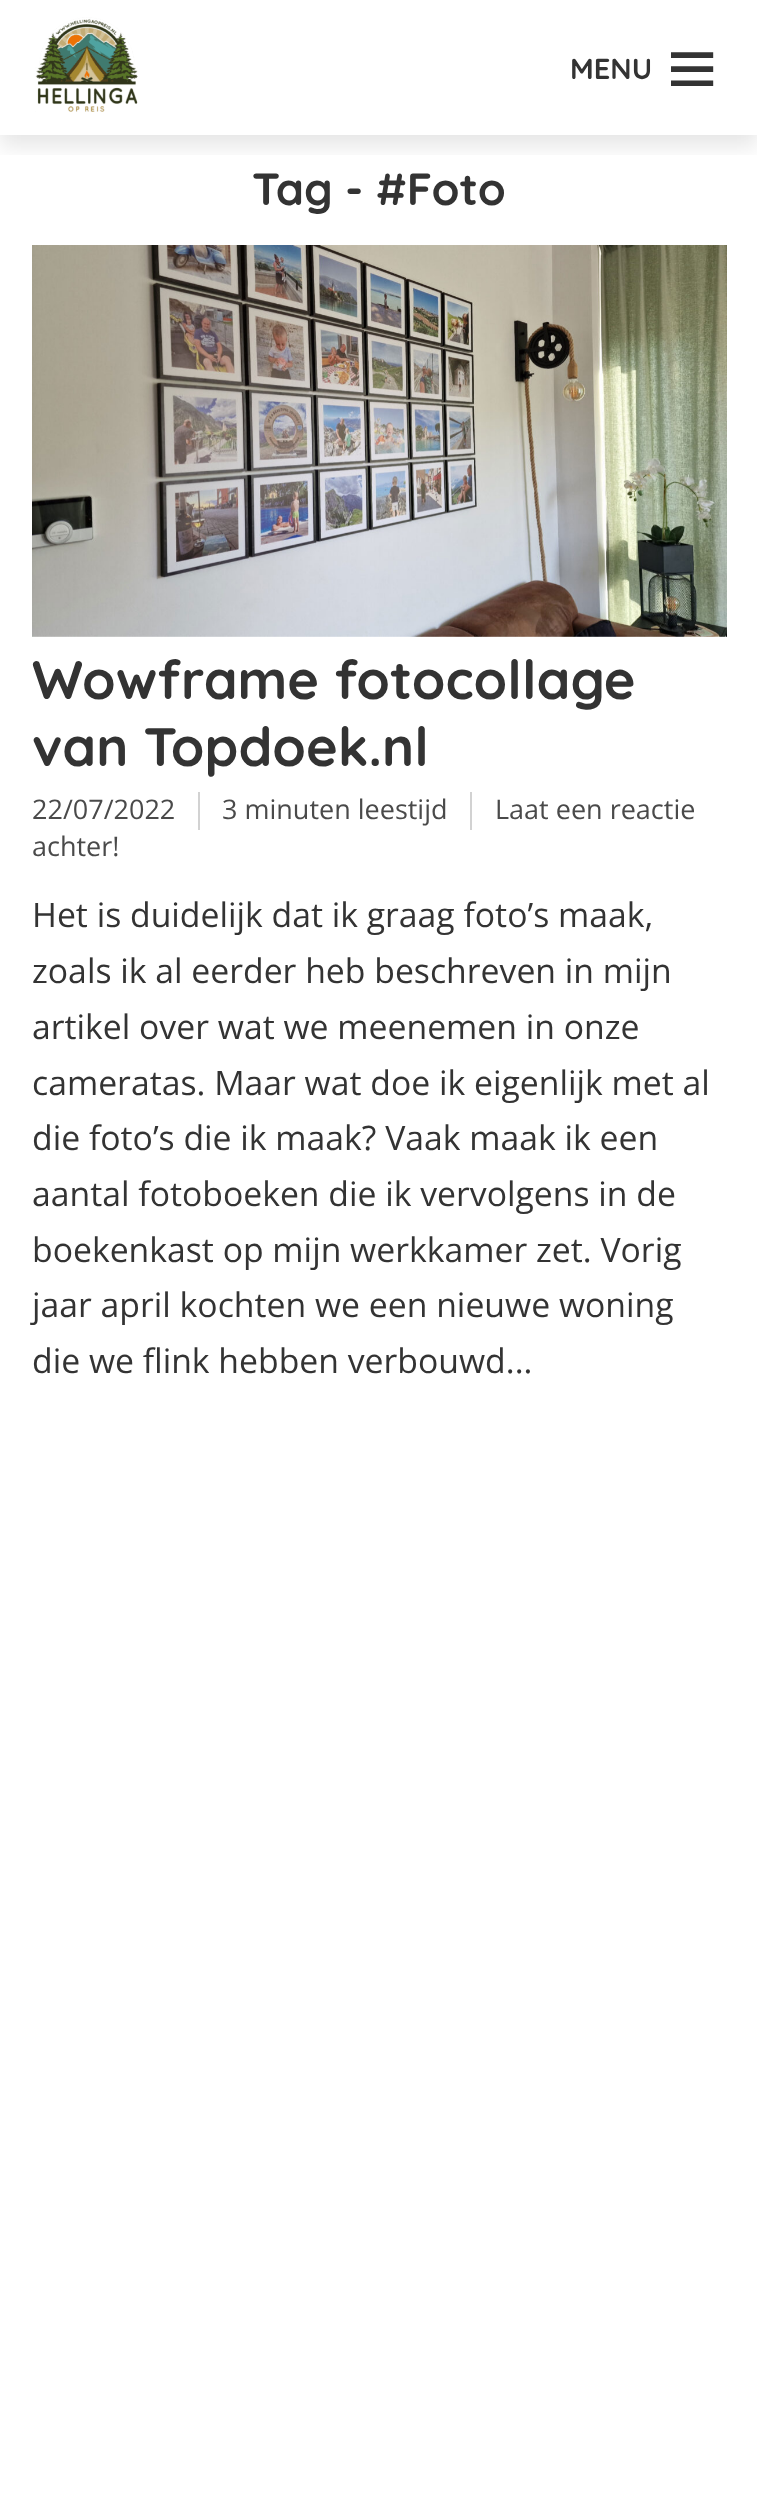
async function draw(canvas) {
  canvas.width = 757;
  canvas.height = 2518;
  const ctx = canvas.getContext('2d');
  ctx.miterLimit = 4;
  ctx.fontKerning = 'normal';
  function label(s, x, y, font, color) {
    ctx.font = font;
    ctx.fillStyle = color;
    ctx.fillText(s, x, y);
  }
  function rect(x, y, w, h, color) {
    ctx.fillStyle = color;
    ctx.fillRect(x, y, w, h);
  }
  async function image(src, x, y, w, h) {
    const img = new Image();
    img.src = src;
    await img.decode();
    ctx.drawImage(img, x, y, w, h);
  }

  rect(0, 0, 757, 2518, '#fff');
  ctx.save();
  ctx.beginPath();
  ctx.rect(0, 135, 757, 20);
  ctx.clip();
  ctx.fillStyle = '#0000001a';
  ctx.filter = 'blur(11px)';
  ctx.beginPath();
  ctx.rect(0, 11, 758, 135);
  ctx.fill();
  ctx.filter = 'none';
  ctx.restore();
  await image('assets/img1.png', 35, 17, 103, 95);
  label('MENU', 570, 79, 'bold 29px Quicksand', '#333');
  label('𐦺', 671, 86, '45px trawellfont', '#333');
  label('Tag - #Foto', 252, 205, 'bold 45px Quicksand', '#333');
  await image('assets/img2.png', 32, 245, 695, 392);
  label('Wowframe fotocollage', 32, 699, 'bold 54px Quicksand', '#333');
  label('van Topdoek.nl', 32, 766, 'bold 54px Quicksand', '#333');
  label('22/07/2022', 32, 819, '27px Open Sans', '#4a4a4a');
  rect(198, 792, 2, 38, '#d2d2d2');
  label('3 minuten leestijd', 222, 819, '27px Open Sans', '#4a4a4a');
  rect(470, 792, 2, 38, '#d2d2d2');
  label('Laat een reactie', 495, 819, '27px Open Sans', '#4a4a4a');
  label('achter!', 32, 856, '27px Open Sans', '#4a4a4a');
  label('Het is duidelijk dat ik graag foto’s maak,', 32, 927, '33.75px Open Sans', '#333');
  label('zoals ik al eerder heb beschreven in mijn', 32, 983, '33.75px Open Sans', '#333');
  label('artikel over wat we meenemen in onze', 32, 1039, '33.75px Open Sans', '#333');
  label('cameratas. Maar wat doe ik eigenlijk met al', 32, 1095, '33.75px Open Sans', '#333');
  label('die foto’s die ik maak? Vaak maak ik een', 32, 1150, '33.75px Open Sans', '#333');
  label('aantal fotoboeken die ik vervolgens in de', 32, 1206, '33.75px Open Sans', '#333');
  label('boekenkast op mijn werkkamer zet. Vorig', 32, 1262, '33.75px Open Sans', '#333');
  label('jaar april kochten we een nieuwe woning', 32, 1317, '33.75px Open Sans', '#333');
  label('die we flink hebben verbouwd...', 32, 1373, '33.75px Open Sans', '#333');
}

draw(document.querySelector('canvas'));
